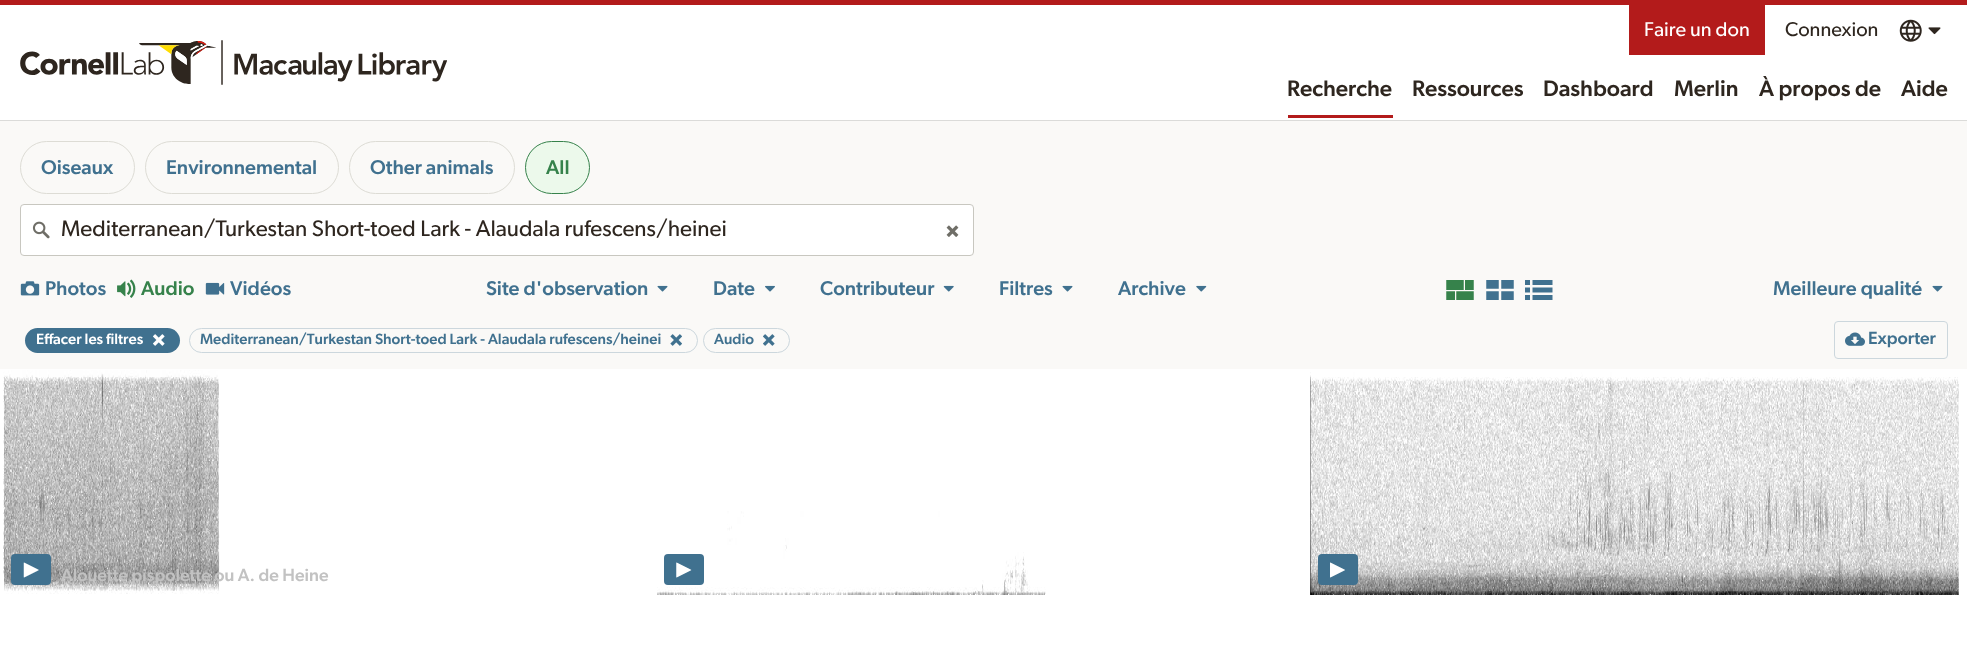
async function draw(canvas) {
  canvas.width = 1967;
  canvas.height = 645;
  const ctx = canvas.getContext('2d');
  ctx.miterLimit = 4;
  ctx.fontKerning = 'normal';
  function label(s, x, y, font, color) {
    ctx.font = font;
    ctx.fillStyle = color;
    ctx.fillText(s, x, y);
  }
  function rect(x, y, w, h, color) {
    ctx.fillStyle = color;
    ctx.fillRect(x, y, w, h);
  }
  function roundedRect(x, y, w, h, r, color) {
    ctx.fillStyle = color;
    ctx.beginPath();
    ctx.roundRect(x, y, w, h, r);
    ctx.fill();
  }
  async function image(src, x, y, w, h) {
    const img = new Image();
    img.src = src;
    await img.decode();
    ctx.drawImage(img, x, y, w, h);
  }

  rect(0, 0, 1967, 645, '#fff');
  rect(0, 0, 1967, 5, '#b31b1b');
  rect(0, 120, 1967, 1, '#dbdbd9');
  await image('assets/img1.png', 20, 40, 427, 45);
  rect(1629, 5, 136, 50, '#b31b1b');
  label('Faire un don', 1644, 36, '20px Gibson', '#fff');
  label('Connexion', 1785, 36, '20px Gibson', '#2e261f');
  await image('assets/img2.png', 1899, 19, 23, 23);
  await image('assets/img3.png', 1928, 27, 13, 8);
  rect(1288, 115, 105, 3, '#b31b1b');
  label('Recherche', 1287, 96, '500 22.6px Gibson', '#2e261f');
  label('Ressources', 1412, 96, '500 22.6px Gibson', '#2e261f');
  label('Dashboard', 1543, 96, '500 22.6px Gibson', '#2e261f');
  label('Merlin', 1674, 96, '500 22.6px Gibson', '#2e261f');
  label('À propos de', 1759, 96, '500 22.6px Gibson', '#2e261f');
  label('Aide', 1901, 96, '500 22.6px Gibson', '#2e261f');
  rect(0, 121, 1967, 248, '#faf9f7');
  ctx.beginPath();
  ctx.roundRect(20.5, 141.5, 114, 52, 26);
  ctx.strokeStyle = '#dddcd5';
  ctx.stroke();
  label('Oiseaux', 41, 174, '500 20px Gibson', '#40718f');
  ctx.beginPath();
  ctx.roundRect(145.5, 141.5, 193, 52, 26);
  ctx.stroke();
  label('Environnemental', 166, 174, '500 20px Gibson', '#40718f');
  ctx.beginPath();
  ctx.roundRect(349.5, 141.5, 165, 52, 26);
  ctx.stroke();
  label('Other animals', 370, 174, '500 20px Gibson', '#40718f');
  ctx.fillStyle = '#ecf9eb';
  ctx.beginPath();
  ctx.roundRect(525.5, 141.5, 64, 52, 26);
  ctx.fill();
  ctx.strokeStyle = '#36824b';
  ctx.stroke();
  label('All', 546, 174, '500 20px Gibson', '#36824b');
  ctx.fillStyle = '#fff';
  ctx.beginPath();
  ctx.roundRect(20.5, 204.5, 953, 51, 3.5);
  ctx.fill();
  ctx.strokeStyle = '#c8c7c0';
  ctx.stroke();
  await image('assets/img4.png', 32, 221, 18, 18);
  label('Mediterranean/Turkestan Short-toed Lark - Alaudala rufescens/heinei', 61, 236, '22.6px Gibson', '#2e261f');
  await image('assets/img5.png', 946, 225, 13, 12);
  await image('assets/img6.png', 20, 281, 20, 15);
  label('Photos', 45, 295, '500 20px Gibson', '#40718f');
  await image('assets/img7.png', 117, 279, 19, 19);
  label('Audio', 141, 295, '500 20px Gibson', '#36824b');
  await image('assets/img8.png', 205, 282, 20, 13);
  label('Vidéos', 230, 295, '500 20px Gibson', '#40718f');
  label('Site d\'observation', 486, 295, '500 20px Gibson', '#40718f');
  await image('assets/img9.png', 657, 285, 11, 7);
  label('Date', 713, 295, '500 20px Gibson', '#40718f');
  await image('assets/img10.png', 765, 285, 10, 7);
  label('Contributeur', 820, 295, '500 20px Gibson', '#40718f');
  await image('assets/img11.png', 943, 285, 11, 7);
  label('Filtres', 999, 295, '500 20px Gibson', '#40718f');
  await image('assets/img9.png', 1062, 285, 11, 7);
  label('Archive', 1118, 295, '500 20px Gibson', '#40718f');
  await image('assets/img12.png', 1196, 285, 11, 7);
  await image('assets/img13.png', 1446, 280, 28, 20);
  await image('assets/img14.png', 1486, 280, 28, 20);
  await image('assets/img15.png', 1525, 280, 28, 20);
  label('Meilleure qualité', 1773, 295, '500 20px Gibson', '#40718f');
  await image('assets/img9.png', 1932, 285, 11, 7);
  roundedRect(25, 328, 155, 25, 12.5, '#40718f');
  label('Effacer les filtres', 36, 344, '500 15px Gibson', '#fff');
  await image('assets/img16.png', 153, 334, 12, 12);
  ctx.beginPath();
  ctx.roundRect(189.5, 328.5, 508, 24, 12);
  ctx.strokeStyle = '#ccd7dd';
  ctx.stroke();
  label('Mediterranean/Turkestan Short-toed Lark - Alaudala rufescens/heinei', 200, 344, '500 15px Gibson', '#40718f');
  await image('assets/img17.png', 670, 334, 12, 12);
  ctx.beginPath();
  ctx.roundRect(703.5, 328.5, 86, 24, 12);
  ctx.stroke();
  label('Audio', 714, 344, '500 15px Gibson', '#40718f');
  await image('assets/img18.png', 763, 334, 12, 12);
  ctx.beginPath();
  ctx.roundRect(1834.5, 321.5, 113, 37, 3.5);
  ctx.stroke();
  await image('assets/img19.png', 1845, 332, 20, 14);
  label('Exporter', 1868, 344, '500 17.6px Gibson', '#40718f');
  await image('assets/img20.png', 3, 370, 217, 224);
  roundedRect(11, 554, 40, 31, 4, '#40718f');
  await image('assets/img21.png', 23, 562, 16, 16);
  label('Alouette pispolette ou A. de Heine', 61, 581, '500 17.6px Gibson', '#c2c2c2');
  await image('assets/img22.png', 657, 511, 389, 84);
  roundedRect(664, 554, 40, 31, 4, '#40718f');
  await image('assets/img23.png', 676, 562, 16, 16);
  await image('assets/img24.png', 1310, 372, 649, 223);
  roundedRect(1318, 554, 40, 31, 4, '#40718f');
  await image('assets/img25.png', 1330, 562, 15, 16);
}

draw(document.querySelector('canvas'));
